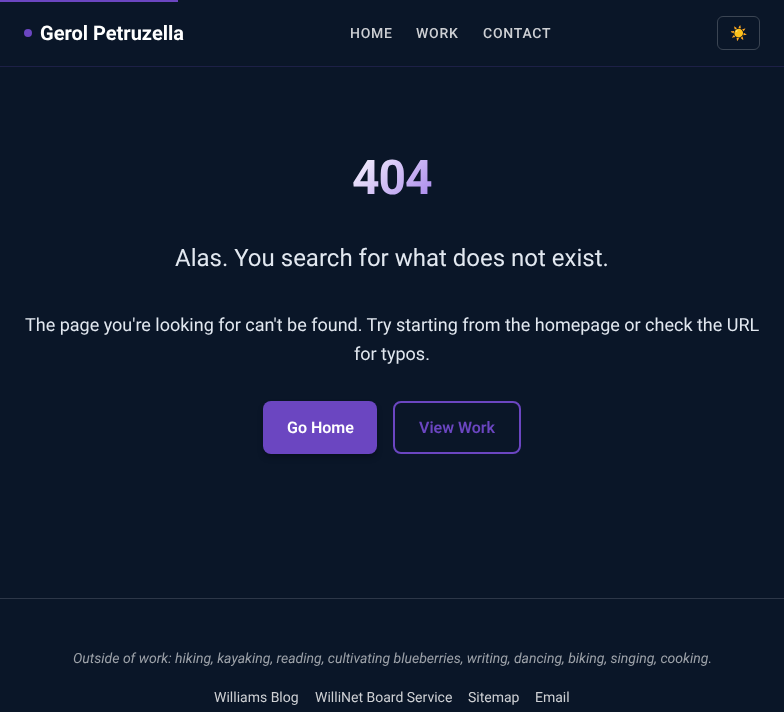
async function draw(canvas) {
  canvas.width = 784;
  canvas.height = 712;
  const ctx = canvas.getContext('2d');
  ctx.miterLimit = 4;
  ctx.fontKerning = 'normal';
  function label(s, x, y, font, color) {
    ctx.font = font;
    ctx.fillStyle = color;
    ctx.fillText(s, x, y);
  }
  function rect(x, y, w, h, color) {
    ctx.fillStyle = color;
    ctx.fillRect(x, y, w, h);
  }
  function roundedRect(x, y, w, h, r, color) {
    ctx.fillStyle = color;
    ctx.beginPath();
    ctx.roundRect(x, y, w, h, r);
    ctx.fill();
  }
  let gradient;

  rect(0, 0, 784, 712, '#0a1628');
  rect(0, 0, 178, 2, '#6b46c1');
  rect(0, 66, 784, 1, '#1d2047');
  ctx.fillStyle = '#6b46c1';
  ctx.beginPath();
  ctx.arc(28, 33, 4, 0, 2 * Math.PI);
  ctx.fill();
  label('Gerol Petruzella', 40, 40, 'bold 20px Roboto', '#fff');
  ctx.letterSpacing = '0.75px';
  label('HOME', 350, 38, '500 14px Roboto', '#ced0d4');
  label('WORK', 416, 38, '500 14px Roboto', '#ced0d4');
  label('CONTACT', 483, 38, '500 14px Roboto', '#ced0d4');
  ctx.beginPath();
  ctx.roundRect(717.5, 16.5, 42, 33, 5.5);
  ctx.strokeStyle = '#3b4553';
  ctx.stroke();
  ctx.letterSpacing = '0px';
  label('☀️', 730, 38, '14px Noto Color Emoji', '#ced0d4');
  ctx.letterSpacing = '-1px';
  ctx.font = 'bold 48px Roboto';
  gradient = ctx.createLinearGradient(355, 144, 429, 217);
  gradient.addColorStop(0, '#fff');
  gradient.addColorStop(1, '#9f7aea');
  ctx.fillStyle = gradient;
  ctx.fillText('404', 352, 194);
  ctx.letterSpacing = '0px';
  label('Alas. You search for what does not exist.', 175, 266, '24px Roboto', '#e2e8f0');
  label('The page you\'re looking for can\'t be found. Try starting from the homepage or check the URL', 25, 331, '18px Roboto', '#e2e8f0');
  label('for typos.', 354, 360, '18px Roboto', '#e2e8f0');
  ctx.fillStyle = '#0000004d';
  ctx.filter = 'blur(3px)';
  ctx.beginPath();
  ctx.roundRect(264, 406, 112, 51, 7);
  ctx.fill();
  ctx.filter = 'none';
  roundedRect(263, 401, 114, 53, 8, '#6b46c1');
  label('Go Home', 287, 433, '600 16px Roboto', '#fff');
  ctx.beginPath();
  ctx.roundRect(394, 402, 126, 51, 7);
  ctx.strokeStyle = '#6b46c1';
  ctx.lineWidth = 2;
  ctx.stroke();
  label('View Work', 419, 433, '600 16px Roboto', '#6b46c1');
  rect(0, 598, 784, 1, '#2d3748');
  label('Outside of work: hiking, kayaking, reading, cultivating blueberries, writing, dancing, biking, singing, cooking.', 73, 663, 'italic 14px Roboto', '#9da2a9');
  label('Williams Blog', 214, 702, '14px Roboto', '#ced0d4');
  label('WilliNet Board Service', 315, 702, '14px Roboto', '#ced0d4');
  label('Sitemap', 468, 702, '14px Roboto', '#ced0d4');
  label('Email', 535, 702, '14px Roboto', '#ced0d4');
}

draw(document.querySelector('canvas'));
